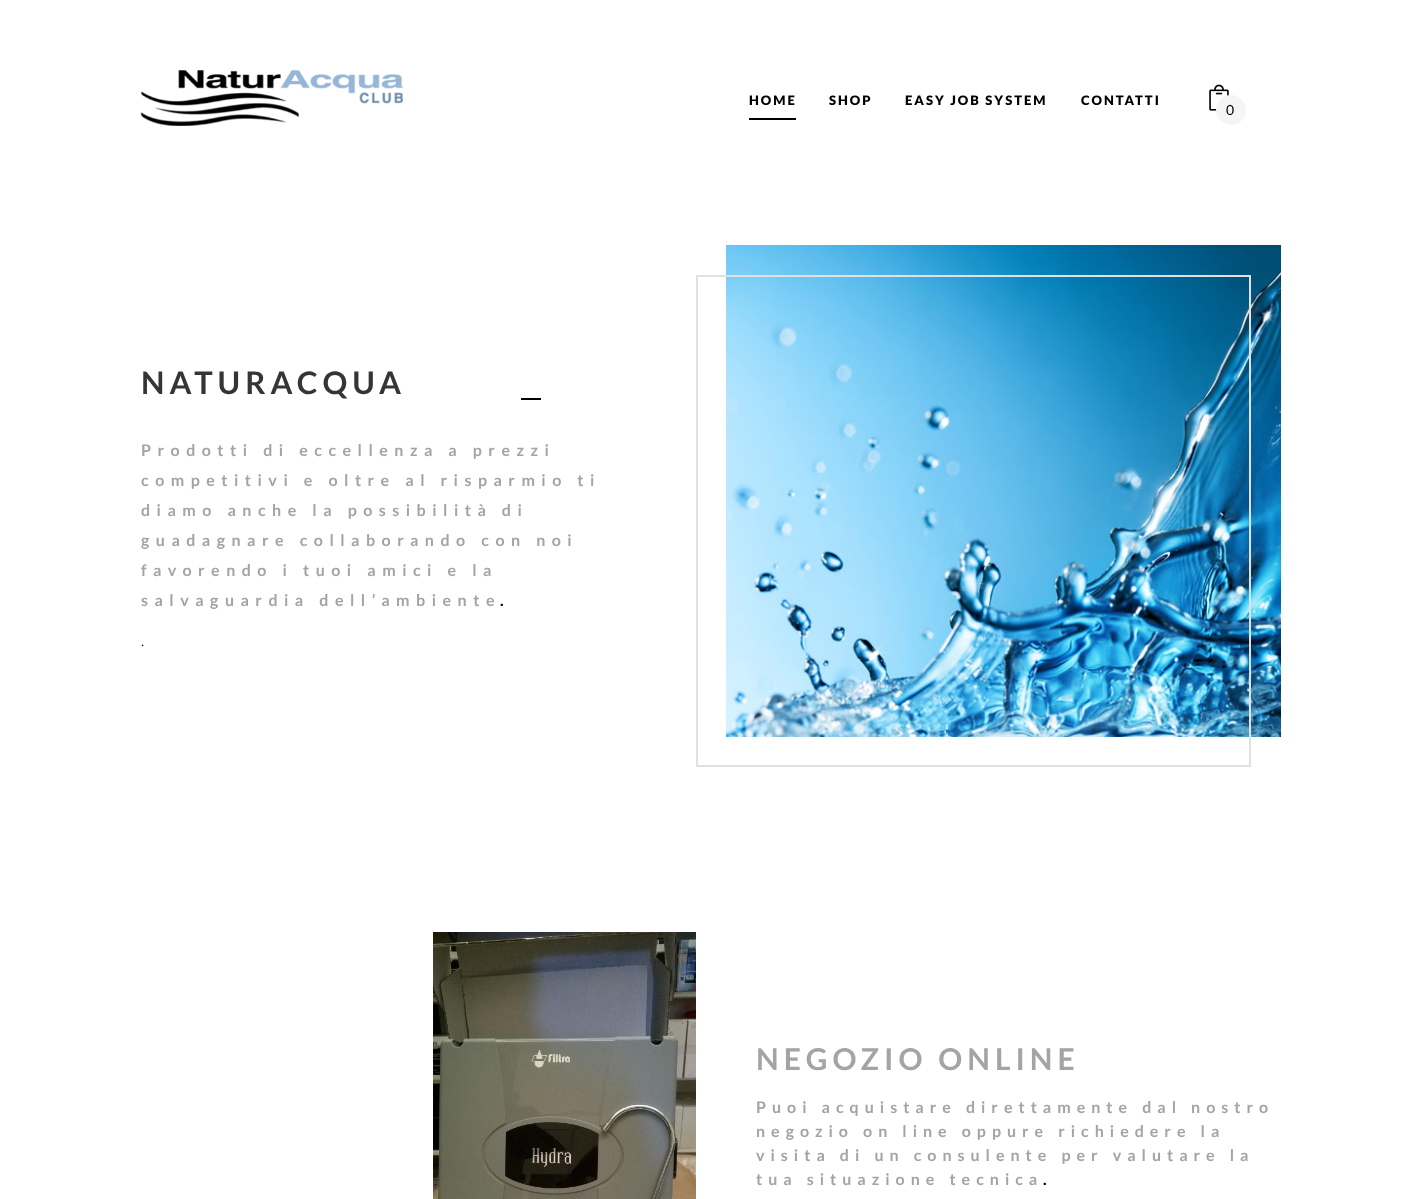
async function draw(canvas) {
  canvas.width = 1421;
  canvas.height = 1199;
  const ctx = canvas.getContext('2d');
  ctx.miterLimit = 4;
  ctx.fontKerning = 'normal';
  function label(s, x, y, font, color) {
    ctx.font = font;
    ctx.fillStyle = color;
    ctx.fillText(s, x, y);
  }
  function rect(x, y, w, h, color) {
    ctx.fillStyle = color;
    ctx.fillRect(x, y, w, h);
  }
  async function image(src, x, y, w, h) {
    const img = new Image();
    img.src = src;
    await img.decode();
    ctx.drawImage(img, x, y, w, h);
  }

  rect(0, 0, 1421, 1199, '#fff');
  await image('assets/img1.png', 140, 70, 263, 56);
  ctx.letterSpacing = '2px';
  label('HOME', 749, 105, '900 13px Lato', '#000');
  rect(749, 118, 47, 2, '#000');
  label('SHOP', 829, 105, '900 13px Lato', '#000');
  label('EASY JOB SYSTEM', 905, 105, '900 13px Lato', '#000');
  label('CONTATTI', 1081, 105, '900 13px Lato', '#000');
  await image('assets/img2.png', 1209, 84, 20, 27);
  ctx.fillStyle = '#f5f5f5';
  ctx.beginPath();
  ctx.arc(1231, 110, 15, 0, 2 * Math.PI);
  ctx.fill();
  ctx.letterSpacing = '0px';
  label('0', 1226, 115, '14px Lato', '#000');
  ctx.letterSpacing = '5px';
  label('NATURACQUA', 141, 394, 'bold 31px Lato', '#353535');
  rect(521, 398, 20, 2, '#000');
  ctx.letterSpacing = '6.5px';
  label('Prodotti di eccellenza a prezzi', 141, 456, 'bold 16px Lato', '#a4a4a4');
  label('competitivi e oltre al risparmio ti', 141, 486, 'bold 16px Lato', '#a4a4a4');
  label('diamo anche la possibilità di', 141, 516, 'bold 16px Lato', '#a4a4a4');
  label('guadagnare collaborando con noi', 141, 546, 'bold 16px Lato', '#a4a4a4');
  label('favorendo i tuoi amici e la', 141, 576, 'bold 16px Lato', '#a4a4a4');
  label('salvaguardia dell’ambiente', 141, 606, 'bold 16px Lato', '#a4a4a4');
  label('.', 500, 606, 'bold 16px Lato', '#000');
  label('.', 141, 646, '300 16px Lato', '#000');
  await image('assets/img3.png', 726, 245, 555, 492);
  ctx.strokeStyle = '#e1e1e1';
  ctx.lineWidth = 2;
  ctx.strokeRect(697, 276, 553, 490);
  await image('assets/img4.png', 433, 932, 263, 267);
  ctx.letterSpacing = '5px';
  label('NEGOZIO ONLINE', 756, 1070, 'bold 30px Lato', '#a4a4a4');
  ctx.letterSpacing = '6px';
  label('Puoi acquistare direttamente dal nostro', 756, 1113, 'bold 16px Lato', '#a4a4a4');
  label('negozio on line oppure richiedere la', 756, 1137, 'bold 16px Lato', '#a4a4a4');
  label('visita di un consulente per valutare la', 756, 1161, 'bold 16px Lato', '#a4a4a4');
  label('tua situazione tecnica', 756, 1185, 'bold 16px Lato', '#a4a4a4');
  label('.', 1043, 1185, 'bold 16px Lato', '#000');
}

draw(document.querySelector('canvas'));
